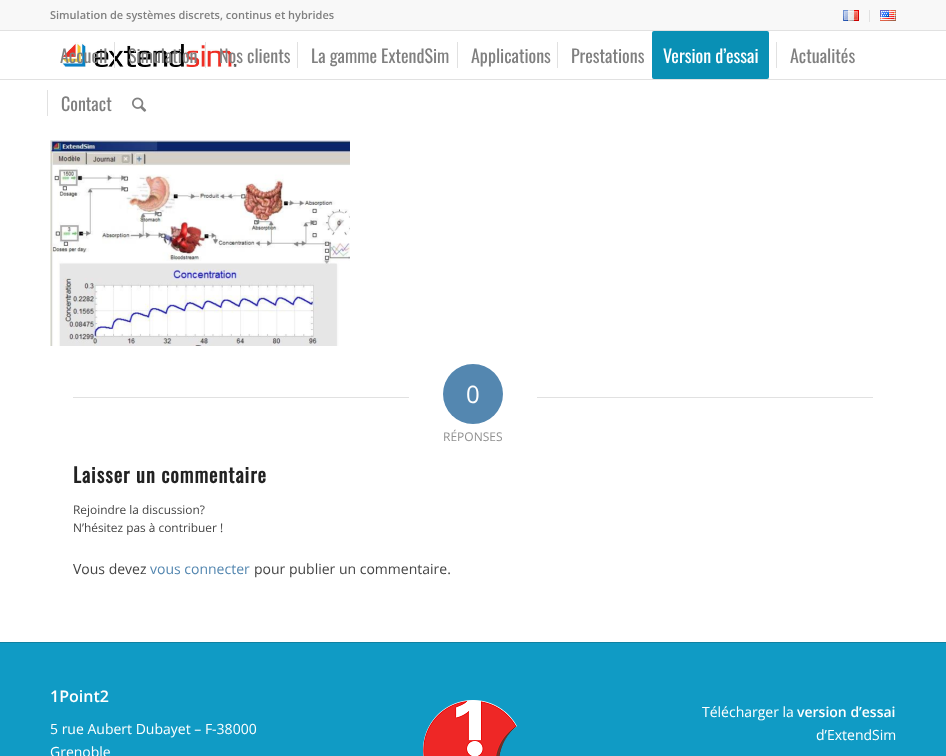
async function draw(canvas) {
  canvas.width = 946;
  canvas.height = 756;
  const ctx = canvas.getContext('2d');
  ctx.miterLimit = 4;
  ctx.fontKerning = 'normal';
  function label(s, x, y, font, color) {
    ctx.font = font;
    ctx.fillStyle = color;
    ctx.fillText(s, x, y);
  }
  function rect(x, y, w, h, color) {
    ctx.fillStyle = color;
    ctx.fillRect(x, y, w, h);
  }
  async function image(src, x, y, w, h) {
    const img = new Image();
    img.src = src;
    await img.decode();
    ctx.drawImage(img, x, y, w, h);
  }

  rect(0, 0, 946, 756, '#fff');
  rect(0, 0, 946, 30, '#f8f8f8');
  rect(0, 30, 946, 1, '#e1e1e1');
  label('Simulation de systèmes discrets, continus et hybrides', 50, 19, '600 11px Open Sans', '#808080');
  rect(869, 10, 1, 12, '#e1e1e1');
  await image('assets/img1.png', 843, 10, 16, 11);
  await image('assets/img2.png', 880, 10, 16, 11);
  rect(0, 79, 946, 1, '#e1e1e1');
  await image('assets/img3.png', 61, 42, 176, 25);
  label('Accueil', 60, 63, '18px Oswald', '#808080');
  label('Simulation', 128, 63, '18px Oswald', '#808080');
  rect(114, 42, 1, 26, '#e1e1e1');
  label('Nos clients', 219, 63, '18px Oswald', '#808080');
  rect(205, 42, 1, 26, '#e1e1e1');
  label('La gamme ExtendSim', 311, 63, '18px Oswald', '#808080');
  rect(297, 42, 1, 26, '#e1e1e1');
  label('Applications', 471, 63, '18px Oswald', '#808080');
  rect(457, 42, 1, 26, '#e1e1e1');
  label('Prestations', 571, 63, '18px Oswald', '#808080');
  rect(557, 42, 1, 26, '#e1e1e1');
  ctx.fillStyle = '#0990b5';
  ctx.beginPath();
  ctx.roundRect(653, 32, 115, 46, 1);
  ctx.fill();
  ctx.strokeStyle = '#0990b5';
  ctx.lineWidth = 2;
  ctx.stroke();
  label('Version d’essai', 663, 63, '18px Oswald', '#fff');
  label('Actualités', 790, 63, '18px Oswald', '#808080');
  rect(776, 42, 1, 26, '#e1e1e1');
  label('Contact', 61, 111, '18px Oswald', '#808080');
  rect(47, 90, 1, 26, '#e1e1e1');
  await image('assets/img4.png', 132, 97, 15, 15);
  await image('assets/img5.png', 50, 140, 300, 206);
  rect(73, 397, 336, 1, '#e1e1e1');
  ctx.fillStyle = '#5487b0';
  ctx.beginPath();
  ctx.arc(473, 394, 30, 0, 2 * Math.PI);
  ctx.fill();
  label('0', 466, 403, '24px Open Sans', '#fff');
  rect(537, 397, 336, 1, '#e1e1e1');
  label('RÉPONSES', 443, 441, '12px Open Sans', '#919191');
  ctx.letterSpacing = '1px';
  label('Laisser un commentaire', 73, 483, 'bold 20px Oswald', '#222');
  ctx.letterSpacing = '0px';
  label('Rejoindre la discussion?', 73, 514, '11.9px Open Sans', '#444');
  label('N’hésitez pas à contribuer !', 73, 532, '11.9px Open Sans', '#444');
  label('Vous devez', 73, 574, '14px Open Sans', '#444');
  label('vous connecter', 150, 574, '14px Open Sans', '#5487b0');
  label('pour publier un commentaire.', 254, 574, '14px Open Sans', '#444');
  rect(0, 643, 946, 113, '#109bc5');
  rect(0, 642, 946, 1, '#0f81a1');
  label('1Point2', 50, 702, '600 16px Open Sans', '#fff');
  label('5 rue Aubert Dubayet – F-38000', 50, 734, '14px Open Sans', '#fff');
  label('Grenoble', 50, 757, '14px Open Sans', '#fff');
  await image('assets/img6.png', 423, 700, 94, 56);
  label('Télécharger la', 702, 717, '14px Open Sans', '#fff');
  label('version d’essai', 797, 717, '600 14px Open Sans', '#fff');
  label('d’ExtendSim', 816, 740, '14px Open Sans', '#fff');
}

draw(document.querySelector('canvas'));
